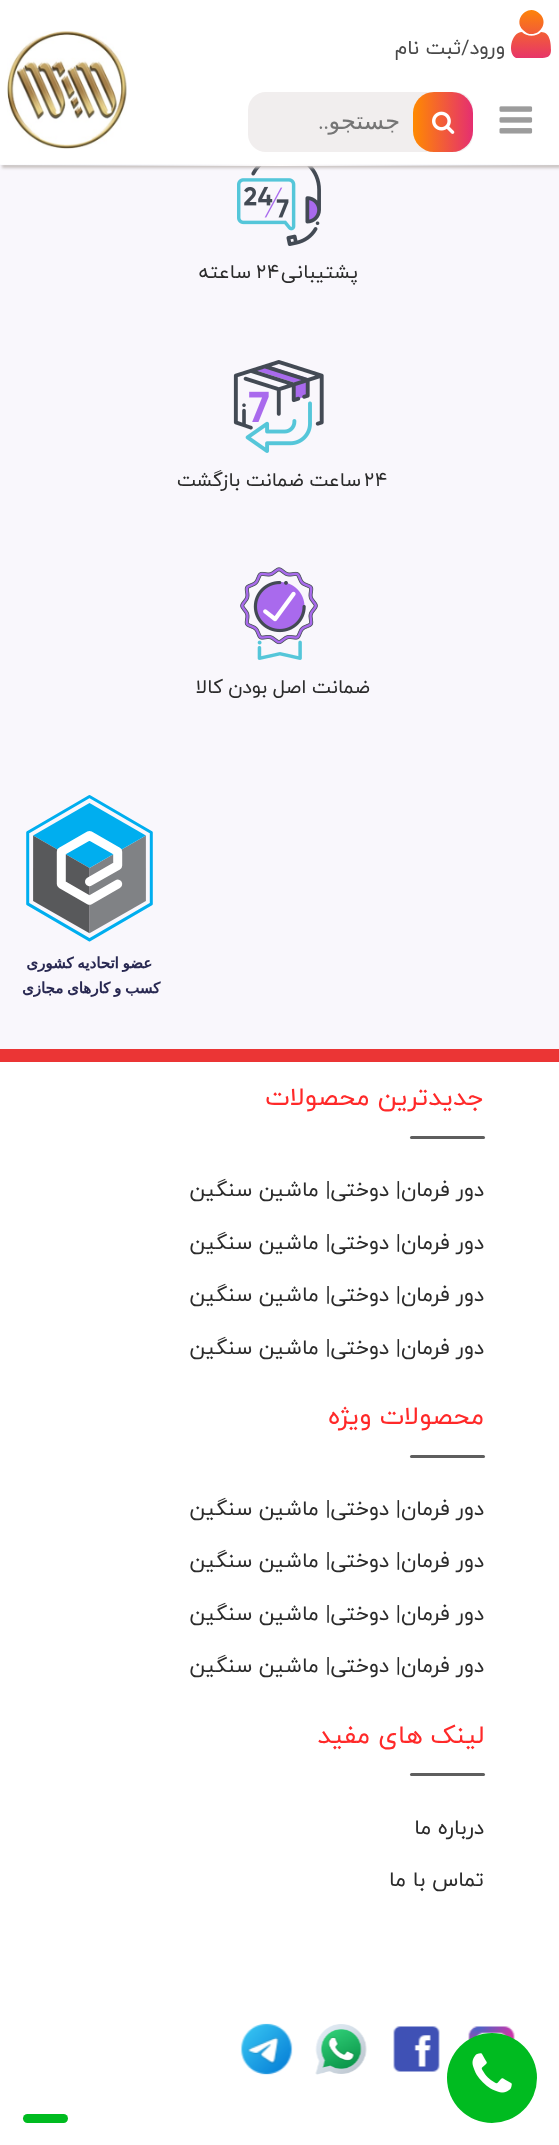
async function draw(canvas) {
  canvas.width = 559;
  canvas.height = 2145;
  const ctx = canvas.getContext('2d');
  ctx.miterLimit = 4;
  ctx.fontKerning = 'normal';
  function label(s, x, y, font, color) {
    ctx.font = font;
    ctx.fillStyle = color;
    ctx.fillText(s, x, y);
  }
  function rect(x, y, w, h, color) {
    ctx.fillStyle = color;
    ctx.fillRect(x, y, w, h);
  }
  function roundedRect(x, y, w, h, r, color) {
    ctx.fillStyle = color;
    ctx.beginPath();
    ctx.roundRect(x, y, w, h, r);
    ctx.fill();
  }
  async function image(src, x, y, w, h) {
    const img = new Image();
    img.src = src;
    await img.decode();
    ctx.drawImage(img, x, y, w, h);
  }
  let gradient, path;

  rect(0, 0, 559, 2145, '#fff');
  ctx.fillStyle = '#eb3535';
  path = new Path2D('M-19 119V1062H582V119ZM-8 132V1048H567V132Z');
  ctx.fill(path, 'evenodd');
  rect(0, 165, 559, 884, '#f9f7fc');
  await image('assets/img4.png', 237, 165, 84, 81);
  ctx.fillStyle = '#c9c3c1';
  ctx.filter = 'blur(1.5px)';
  ctx.beginPath();
  ctx.rect(2, 3, 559, 165);
  ctx.fill();
  ctx.filter = 'none';
  rect(0, 0, 559, 165, '#fff');
  gradient = ctx.createLinearGradient(532, 6, 532, 62);
  gradient.addColorStop(0, '#ff8a00');
  gradient.addColorStop(1, '#e52e71');
  ctx.fillStyle = gradient;
  path = new Path2D('M551 50C551 57 547 58 540 58H516C507 54 511 32 522 32C527 37 536 37 541 32C550 32 551 43 551 50ZM540 14C551 25 534 42 523 30C512 19 529 2 540 14Z');
  ctx.fill(path);
  ctx.direction = 'rtl';
  label('ورود/ثبت نام', 505, 54, '20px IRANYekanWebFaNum', '#484848');
  await image('assets/img1.png', 499, 106, 34, 28);
  roundedRect(248, 92, 225, 60, 18, '#f1eeee');
  gradient = ctx.createLinearGradient(413, 122, 473, 122);
  gradient.addColorStop(0, '#ff8a00');
  gradient.addColorStop(1, '#e52e71');
  ctx.fillStyle = gradient;
  ctx.beginPath();
  ctx.roundRect(413, 92, 60, 60, 21);
  ctx.fill();
  await image('assets/img2.png', 432, 111, 23, 23);
  label('جستجو', 400, 129, '24px DejaVu Sans', '#757575');
  label('..', 329, 129, '24px Pangolin', '#757575');
  await image('assets/img3.png', 7, 31, 120, 118);
  gradient = ctx.createLinearGradient(0, 164, 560, 164);
  gradient.addColorStop(0, '#e7ebf61a');
  gradient.addColorStop(0.5, '#fffdfd');
  gradient.addColorStop(1, '#e7ebf61a');
  ctx.fillStyle = gradient;
  ctx.fillRect(0, 164, 559, 2);
  ctx.letterSpacing = '0.25px';
  label('پشتیبانی', 358, 278, '19.5px IRANYekanWebFaNum', '#2b2b2b');
  ctx.direction = 'ltr';
  label('24', 256, 278, '19.5px IRANYekanWebFaNum', '#2b2b2b');
  ctx.direction = 'rtl';
  label('ساعته', 251, 278, '19.5px IRANYekanWebFaNum', '#2b2b2b');
  await image('assets/img5.png', 233, 360, 91, 93);
  ctx.direction = 'ltr';
  label('24', 364, 486, '19.5px IRANYekanWebFaNum', '#2b2b2b');
  ctx.wordSpacing = '-1px';
  ctx.direction = 'rtl';
  label('ساعت ضمانت بازگشت', 361, 486, '19.5px IRANYekanWebFaNum', '#2b2b2b');
  await image('assets/img6.png', 240, 567, 78, 93);
  label('ضمانت اصل بودن کالا', 370, 693, '19.5px IRANYekanWebFaNum', '#2b2b2b');
  await image('assets/img7.png', 22, 795, 139, 202);
  ctx.letterSpacing = '0px';
  ctx.wordSpacing = '0px';
  label('جدیدترین محصولات', 484, 1105, '25.5px IRANYekanWebFaNum', '#ff2929');
  roundedRect(410, 1136, 75, 3, 1.5, '#5e5e5e');
  label('دور فرمان| دوختی| ماشین سنگین', 484, 1196, '21px IRANYekanWebFaNum', '#2b2b2b');
  label('دور فرمان| دوختی| ماشین سنگین', 484, 1249, '21px IRANYekanWebFaNum', '#2b2b2b');
  label('دور فرمان| دوختی| ماشین سنگین', 484, 1301, '21px IRANYekanWebFaNum', '#2b2b2b');
  label('دور فرمان| دوختی| ماشین سنگین', 484, 1354, '21px IRANYekanWebFaNum', '#2b2b2b');
  label('محصولات ویژه', 484, 1424, '25.5px IRANYekanWebFaNum', '#ff2929');
  roundedRect(410, 1455, 75, 3, 1.5, '#5e5e5e');
  label('دور فرمان| دوختی| ماشین سنگین', 484, 1515, '21px IRANYekanWebFaNum', '#2b2b2b');
  label('دور فرمان| دوختی| ماشین سنگین', 484, 1567, '21px IRANYekanWebFaNum', '#2b2b2b');
  label('دور فرمان| دوختی| ماشین سنگین', 484, 1620, '21px IRANYekanWebFaNum', '#2b2b2b');
  label('دور فرمان| دوختی| ماشین سنگین', 484, 1672, '21px IRANYekanWebFaNum', '#2b2b2b');
  label('لینک های مفید', 484, 1743, '25.5px IRANYekanWebFaNum', '#ff2929');
  roundedRect(410, 1773, 75, 3, 1.5, '#5e5e5e');
  label('درباره ما', 484, 1834, '21px IRANYekanWebFaNum', '#2b2b2b');
  label('تماس با ما', 484, 1886, '21px IRANYekanWebFaNum', '#2b2b2b');
  await image('assets/img8.png', 468, 2026, 47, 14);
  await image('assets/img9.png', 393, 2026, 47, 46);
  await image('assets/img10.png', 315, 2024, 52, 51);
  await image('assets/img11.png', 240, 2023, 53, 52);
  ctx.fillStyle = '#00bb20';
  ctx.beginPath();
  ctx.arc(492, 2078, 45, 0, 2 * Math.PI);
  ctx.fill();
  await image('assets/img12.png', 472, 2053, 40, 40);
  roundedRect(23, 2114, 45, 9, 4.5, '#00bb20');
}

draw(document.querySelector('canvas'));
